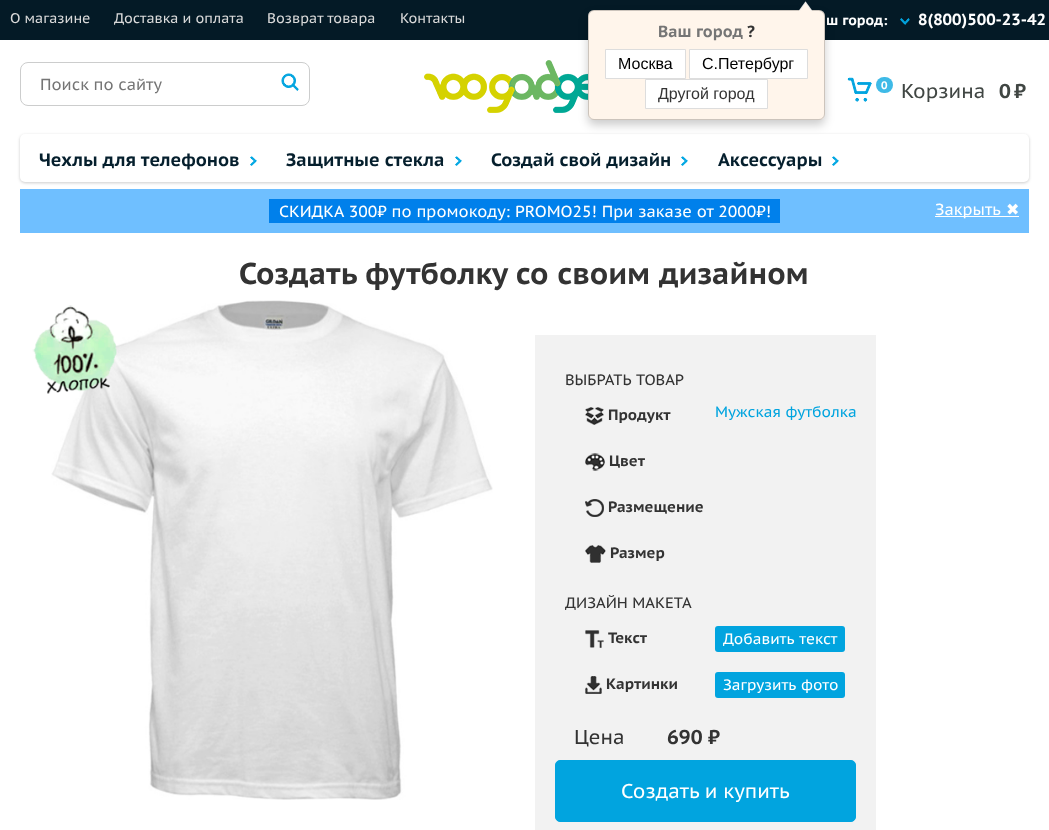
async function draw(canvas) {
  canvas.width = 1049;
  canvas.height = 830;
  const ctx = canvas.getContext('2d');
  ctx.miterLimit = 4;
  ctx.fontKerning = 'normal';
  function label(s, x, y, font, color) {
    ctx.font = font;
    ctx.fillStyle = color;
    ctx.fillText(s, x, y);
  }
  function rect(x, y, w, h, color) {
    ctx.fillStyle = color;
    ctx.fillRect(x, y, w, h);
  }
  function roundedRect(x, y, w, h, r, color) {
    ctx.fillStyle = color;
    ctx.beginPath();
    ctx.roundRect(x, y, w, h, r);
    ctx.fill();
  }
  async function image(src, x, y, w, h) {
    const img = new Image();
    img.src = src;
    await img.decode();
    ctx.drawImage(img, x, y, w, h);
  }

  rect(0, 0, 1049, 830, '#fff');
  rect(0, 0, 1049, 40, '#041a26');
  label('О магазине', 10, 23, '14px PT Sans Caption', '#d9d9d9');
  label('Доставка и оплата', 114, 23, '14px PT Sans Caption', '#d9d9d9');
  label('Возврат товара', 267, 23, '14px PT Sans Caption', '#d9d9d9');
  label('Контакты', 400, 23, '14px PT Sans Caption', '#d9d9d9');
  label('ш город:', 826, 25, 'bold 14px PT Sans Caption', '#fff');
  await image('assets/img1.png', 900, 18, 10, 7);
  await image('assets/img5.png', 424, 60, 164, 53);
  ctx.fillStyle = '#00000033';
  ctx.filter = 'blur(1.5px)';
  ctx.beginPath();
  ctx.roundRect(20, 135, 1009, 48, 5);
  ctx.fill();
  ctx.filter = 'none';
  roundedRect(20, 134, 1009, 48, 5, '#fff');
  ctx.fillStyle = '#00000033';
  ctx.filter = 'blur(5px)';
  ctx.beginPath();
  ctx.roundRect(588, 15, 237, 110, 6);
  ctx.fill();
  ctx.filter = 'none';
  roundedRect(588, 10, 237, 110, 6, '#fff5eb');
  ctx.beginPath();
  ctx.roundRect(588.5, 10.5, 236, 109, 5.5);
  ctx.strokeStyle = '#00000033';
  ctx.stroke();
  await image('assets/img2.png', 799, 1, 13, 10);
  label('Ваш город', 658, 37, 'bold 16px PT Sans Caption', '#757575');
  label('?', 747, 37, 'bold 16px PT Sans Caption', '#333');
  ctx.fillStyle = '#fff';
  ctx.beginPath();
  ctx.rect(605.5, 49.5, 80, 29);
  ctx.fill();
  ctx.strokeStyle = '#ddd';
  ctx.stroke();
  label('Москва', 618, 69, '16px Liberation Sans', '#000');
  ctx.fillStyle = '#fff';
  ctx.beginPath();
  ctx.rect(689.5, 49.5, 118, 29);
  ctx.fill();
  ctx.stroke();
  label('С.Петербург', 702, 69, '16px Liberation Sans', '#000');
  ctx.fillStyle = '#fff';
  ctx.beginPath();
  ctx.rect(645.5, 79.5, 122, 29);
  ctx.fill();
  ctx.stroke();
  label('Другой город', 658, 99, '16px Liberation Sans', '#333');
  label('8(800)500-23-42', 918, 25, 'bold 16px PT Sans Caption', '#fff');
  await image('assets/img3.png', 847, 77, 25, 25);
  roundedRect(876, 77, 17, 16, 8, '#3ebae7');
  label('0', 881, 89, 'bold 11px PT Sans Caption', '#fff');
  label('Корзина', 901, 98, '20px PT Sans Caption', '#404643');
  label('0', 999, 98, 'bold 20px PT Sans Caption', '#404643');
  label('₽', 1014, 98, 'bold 20px PT Sans Caption', '#404643');
  ctx.beginPath();
  ctx.roundRect(20.5, 62.5, 289, 43, 7.5);
  ctx.strokeStyle = '#cccdcd';
  ctx.stroke();
  label('Поиск по сайту', 40, 90, '16px PT Sans Caption', '#757575');
  await image('assets/img4.png', 281, 73, 18, 18);
  label('Чехлы для телефонов', 39, 166, 'bold 18px PT Sans Caption', '#051f2d');
  await image('assets/img6.png', 250, 156, 7, 10);
  label('Защитные стекла', 286, 166, 'bold 18px PT Sans Caption', '#051f2d');
  await image('assets/img6.png', 455, 156, 7, 10);
  label('Создай свой дизайн', 491, 166, 'bold 18px PT Sans Caption', '#051f2d');
  await image('assets/img6.png', 681, 156, 7, 10);
  label('Аксессуары', 718, 166, 'bold 18px PT Sans Caption', '#051f2d');
  await image('assets/img6.png', 832, 156, 7, 10);
  rect(20, 189, 1009, 44, '#6fbfff');
  rect(269, 199, 511, 24, '#0080eb');
  ctx.wordSpacing = '0.25px';
  label('СКИДКА 300₽ по промокоду: PROMO25! При заказе от 2000₽!', 279, 217, '16px PT Sans Caption', '#fff');
  rect(935, 216, 84, 1, '#fff');
  ctx.wordSpacing = '0px';
  label('Закрыть', 935, 215, '16px PT Sans Caption', '#fff');
  label('✖', 1006, 215, '16px DejaVu Sans', '#fff');
  ctx.wordSpacing = '0.5px';
  label('Создать футболку со своим дизайном', 239, 284, 'bold 30px PT Sans Caption', '#333');
  await image('assets/img7.png', 51, 300, 442, 500);
  await image('assets/img8.png', 32, 305, 85, 89);
  rect(535, 335, 341, 495, '#f2f2f2');
  ctx.wordSpacing = '1px';
  label('ВЫБРАТЬ ТОВАР', 565, 385, '15px PT Sans Caption', '#333');
  await image('assets/img9.png', 585, 407, 19, 18);
  ctx.wordSpacing = '0px';
  label('Продукт', 608, 420, 'bold 15px PT Sans Caption', '#333');
  label('Мужская футболка', 715, 417, '15px PT Sans Caption', '#01a4df');
  await image('assets/img10.png', 585, 453, 20, 18);
  label('Цвет', 609, 466, 'bold 15px PT Sans Caption', '#333');
  await image('assets/img11.png', 585, 499, 19, 18);
  label('Размещение', 608, 512, 'bold 15px PT Sans Caption', '#333');
  await image('assets/img12.png', 585, 545, 21, 18);
  label('Размер', 610, 558, 'bold 15px PT Sans Caption', '#333');
  label('ДИЗАЙН МАКЕТА', 565, 608, '15px PT Sans Caption', '#333');
  await image('assets/img13.png', 585, 630, 19, 18);
  label('Текст', 608, 643, 'bold 15px PT Sans Caption', '#333');
  roundedRect(715, 626, 130, 26, 3, '#01a4df');
  ctx.wordSpacing = '1px';
  label('Добавить текст', 723, 644, '15px PT Sans Caption', '#fff');
  await image('assets/img14.png', 585, 676, 17, 18);
  ctx.wordSpacing = '0px';
  label('Картинки', 606, 689, 'bold 15px PT Sans Caption', '#333');
  roundedRect(715, 672, 130, 26, 3, '#01a4df');
  ctx.wordSpacing = '1px';
  label('Загрузить фото', 723, 690, '15px PT Sans Caption', '#fff');
  ctx.wordSpacing = '0px';
  label('Цена', 574, 744, '20px PT Sans Caption', '#333');
  label('690 ₽', 667, 744, 'bold 20px PT Sans Caption', '#333');
  ctx.fillStyle = '#01a4df';
  ctx.beginPath();
  ctx.roundRect(555.5, 760.5, 300, 61, 4.5);
  ctx.fill();
  ctx.strokeStyle = '#01a4df';
  ctx.stroke();
  label('Создать и купить', 621, 798, '20px PT Sans Caption', '#fff');
}

draw(document.querySelector('canvas'));
